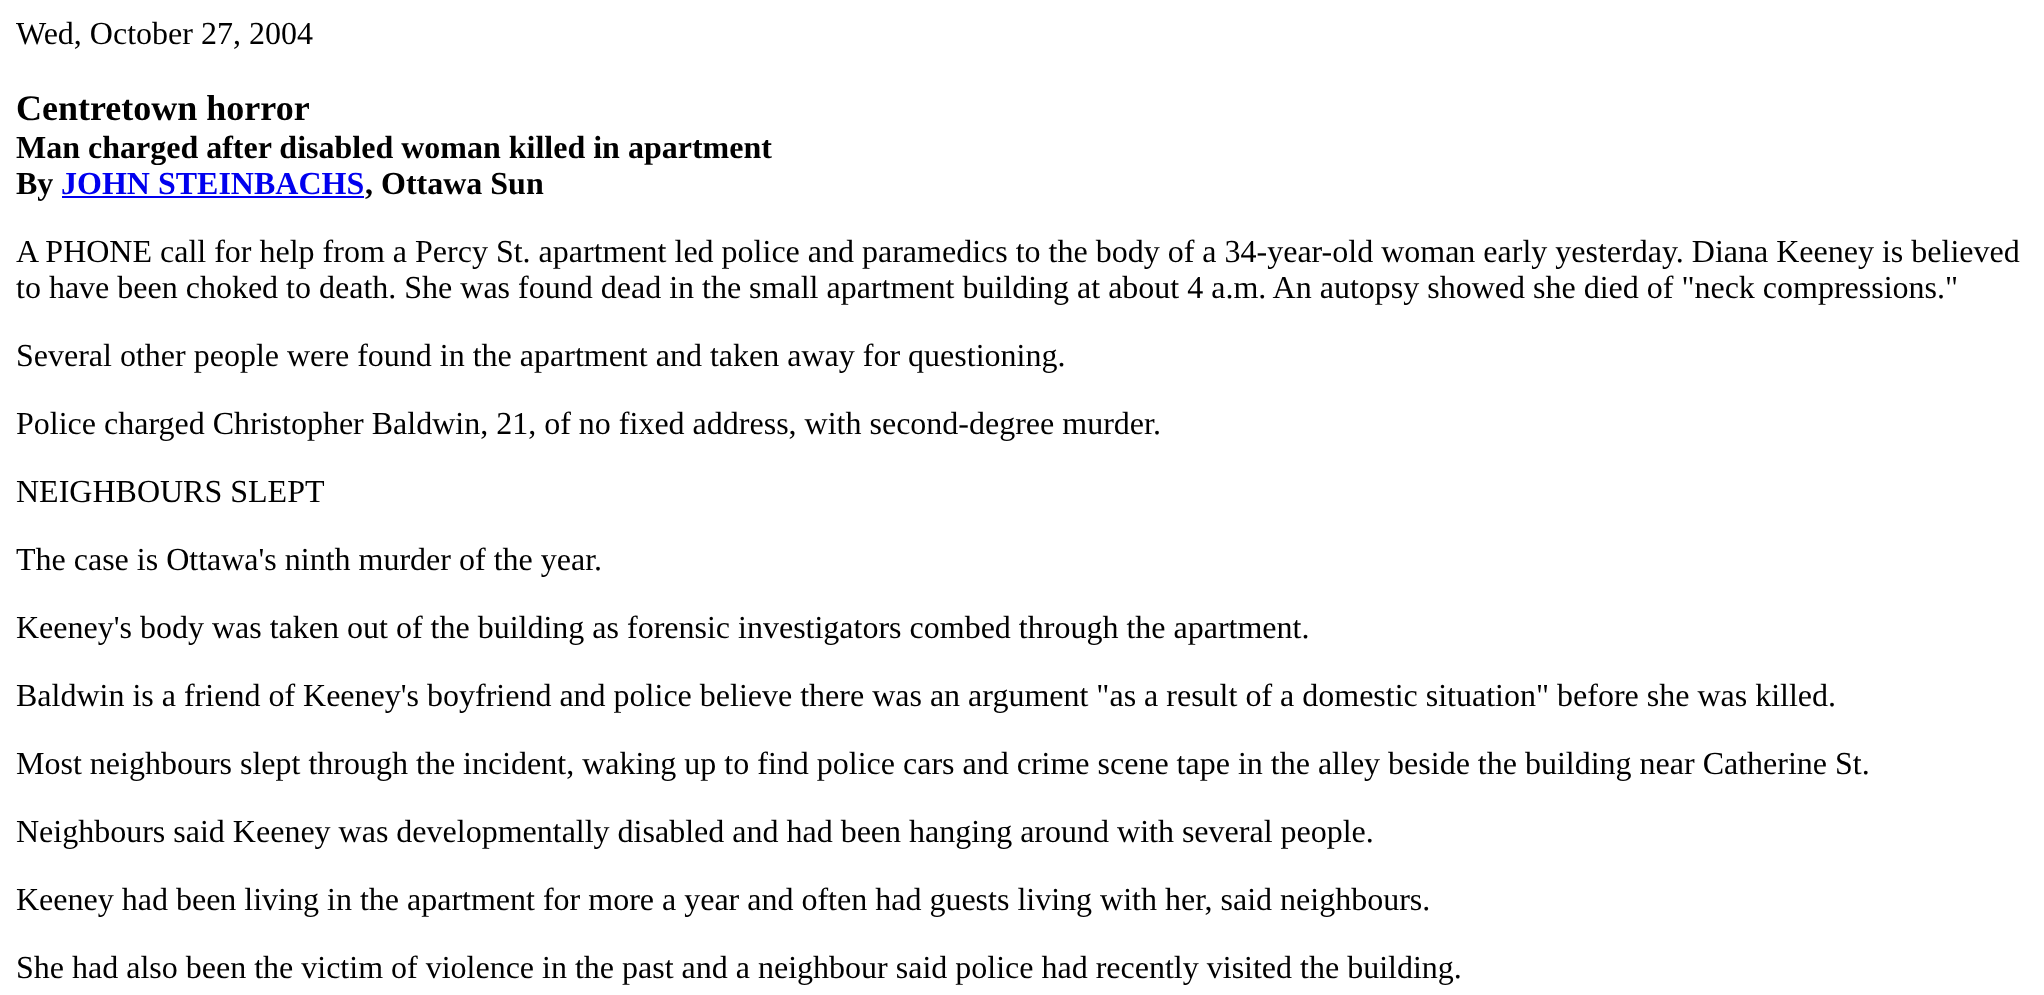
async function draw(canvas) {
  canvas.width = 2044;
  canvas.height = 995;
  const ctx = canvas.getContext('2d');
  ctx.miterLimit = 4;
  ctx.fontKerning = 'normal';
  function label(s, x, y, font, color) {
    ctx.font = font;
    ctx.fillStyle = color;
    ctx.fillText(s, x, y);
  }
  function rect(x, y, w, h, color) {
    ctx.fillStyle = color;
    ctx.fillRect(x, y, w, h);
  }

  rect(0, 0, 2044, 995, '#fff');
  label('Wed, October 27, 2004', 16, 44, '32px Liberation Serif', '#000');
  label('Centretown horror', 16, 120, 'bold 36px Liberation Serif', '#000');
  label('Man charged after disabled woman killed in apartment', 16, 158, 'bold 32px Liberation Serif', '#000');
  label('By', 16, 194, 'bold 32px Liberation Serif', '#000');
  label('JOHN STEINBACHS', 61, 194, 'bold 32px Liberation Serif', '#00e');
  label(', Ottawa Sun', 365, 194, 'bold 32px Liberation Serif', '#000');
  rect(62, 196, 302, 2, '#00e');
  label('A PHONE call for help from a Percy St. apartment led police and paramedics to the body of a 34-year-old woman early yesterday. Diana Keeney is believed', 16, 262, '32px Liberation Serif', '#000');
  label('to have been choked to death. She was found dead in the small apartment building at about 4 a.m. An autopsy showed she died of "neck compressions."', 16, 298, '32px Liberation Serif', '#000');
  label('Several other people were found in the apartment and taken away for questioning.', 16, 366, '32px Liberation Serif', '#000');
  label('Police charged Christopher Baldwin, 21, of no fixed address, with second-degree murder.', 16, 434, '32px Liberation Serif', '#000');
  label('NEIGHBOURS SLEPT', 16, 502, '32px Liberation Serif', '#000');
  label('The case is Ottawa\'s ninth murder of the year.', 16, 570, '32px Liberation Serif', '#000');
  label('Keeney\'s body was taken out of the building as forensic investigators combed through the apartment.', 16, 638, '32px Liberation Serif', '#000');
  label('Baldwin is a friend of Keeney\'s boyfriend and police believe there was an argument "as a result of a domestic situation" before she was killed.', 16, 706, '32px Liberation Serif', '#000');
  label('Most neighbours slept through the incident, waking up to find police cars and crime scene tape in the alley beside the building near Catherine St.', 16, 774, '32px Liberation Serif', '#000');
  label('Neighbours said Keeney was developmentally disabled and had been hanging around with several people.', 16, 842, '32px Liberation Serif', '#000');
  label('Keeney had been living in the apartment for more a year and often had guests living with her, said neighbours.', 16, 910, '32px Liberation Serif', '#000');
  label('She had also been the victim of violence in the past and a neighbour said police had recently visited the building.', 16, 978, '32px Liberation Serif', '#000');
}

draw(document.querySelector('canvas'));
